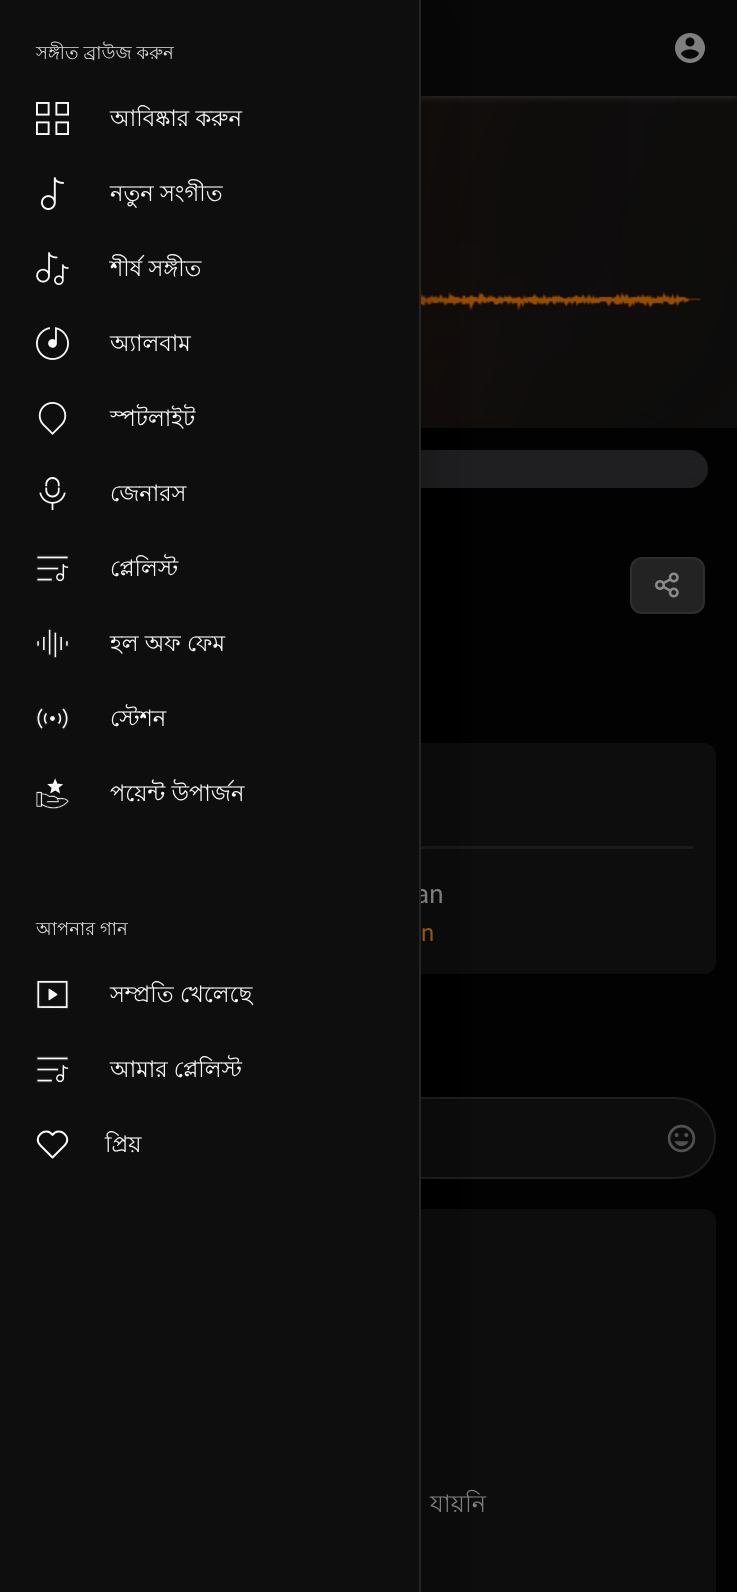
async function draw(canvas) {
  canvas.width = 737;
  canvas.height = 1592;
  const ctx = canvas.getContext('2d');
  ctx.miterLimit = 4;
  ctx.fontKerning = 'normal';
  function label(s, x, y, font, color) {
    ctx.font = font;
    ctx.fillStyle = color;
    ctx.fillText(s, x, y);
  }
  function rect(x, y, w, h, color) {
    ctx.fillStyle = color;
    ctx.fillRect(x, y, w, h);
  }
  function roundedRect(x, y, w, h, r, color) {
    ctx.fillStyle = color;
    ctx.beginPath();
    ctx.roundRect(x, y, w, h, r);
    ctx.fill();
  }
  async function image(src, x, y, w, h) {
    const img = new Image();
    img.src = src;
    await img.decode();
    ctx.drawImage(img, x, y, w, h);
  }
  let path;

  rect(0, 0, 737, 1592, '#020202');
  rect(421, 96, 316, 332, '#0d0d0d');
  await image('assets/img13.png', 421, 96, 316, 332);
  ctx.fillStyle = '#99999933';
  ctx.filter = 'blur(3px)';
  ctx.beginPath();
  ctx.rect(0, 2, 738, 96);
  ctx.fill();
  ctx.filter = 'none';
  rect(421, 0, 316, 96, '#080808');
  await image('assets/img1.png', 675, 33, 30, 30);
  await image('assets/img14.png', 421, 291, 280, 20);
  ctx.beginPath();
  ctx.roundRect(34, 454, 670, 30, 15);
  ctx.strokeStyle = '#1f1f21';
  ctx.lineWidth = 8;
  ctx.stroke();
  roundedRect(38, 458, 663, 22, 11, '#1f1f21');
  roundedRect(23, 743, 693, 231, 12, '#0d0d0d');
  rect(421, 846, 272, 3, '#1b1b1b');
  ctx.fillStyle = '#0d0d0d';
  ctx.beginPath();
  ctx.roundRect(24, 1098, 691, 80, 40);
  ctx.fill();
  ctx.strokeStyle = '#201f1f';
  ctx.lineWidth = 2;
  ctx.stroke();
  roundedRect(23, 1209, 693, 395, 12, '#0d0d0d');
  ctx.fillStyle = '#141414';
  ctx.beginPath();
  ctx.arc(369.5, 1411.5, 52.5, 0, 2 * Math.PI);
  ctx.fill();
  ctx.fillStyle = '#0000001f';
  ctx.filter = 'blur(22.5px)';
  ctx.beginPath();
  ctx.rect(-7, 2, 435, 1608);
  ctx.fill();
  ctx.filter = 'none';
  ctx.fillStyle = '#00000024';
  ctx.filter = 'blur(18px)';
  ctx.beginPath();
  ctx.rect(-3, 21, 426, 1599);
  ctx.fill();
  ctx.filter = 'none';
  label('an', 415, 903, '26px Roboto', '#7e7e7e');
  rect(0, 0, 419, 1592, '#0e0e0e');
  rect(419, 0, 2, 1592, '#252525');
  label('সঙ্গীত ব্রাউজ করুন', 36, 59, '18px Lohit Bengali', '#dbdbdb');
  await image('assets/img2.png', 36, 102, 33, 33);
  label('আবিষ্কার করুন', 110, 126, '22.5px Lohit Bengali', '#f9f9f9');
  await image('assets/img3.png', 40, 177, 24, 33);
  label('নতুন সংগীত', 110, 201, '22.5px Lohit Bengali', '#f9f9f9');
  await image('assets/img4.png', 36, 252, 33, 33);
  label('শীর্ষ সঙ্গীত', 110, 276, '22.5px Lohit Bengali', '#f9f9f9');
  await image('assets/img5.png', 36, 327, 33, 33);
  label('অ্যালবাম', 110, 351, '22.5px Lohit Bengali', '#f9f9f9');
  await image('assets/img6.png', 38, 402, 29, 33);
  label('স্পটলাইট', 110, 426, '22.5px Lohit Bengali', '#f9f9f9');
  await image('assets/img7.png', 39, 477, 27, 33);
  label('জেনারস', 110, 501, '22.5px Lohit Bengali', '#f9f9f9');
  await image('assets/img8.png', 36, 555, 33, 27);
  label('প্লেলিস্ট', 110, 576, '22.5px Lohit Bengali', '#f9f9f9');
  await image('assets/img9.png', 36, 628, 33, 31);
  label('হল অফ ফেম', 110, 651, '22.5px Lohit Bengali', '#f9f9f9');
  await image('assets/img10.png', 36, 707, 33, 24);
  label('স্টেশন', 110, 726, '22.5px Lohit Bengali', '#f9f9f9');
  await image('assets/img11.png', 36, 778, 33, 31);
  label('পয়েন্ট উপার্জন', 110, 801, '22.5px Lohit Bengali', '#f9f9f9');
  label('আপনার গান', 36, 935, '18px Lohit Bengali', '#dbdbdb');
  await image('assets/img12.png', 36, 980, 33, 30);
  label('সম্প্রতি খেলেছে', 110, 1002, '22.5px Lohit Bengali', '#f9f9f9');
  await image('assets/img8.png', 36, 1056, 33, 27);
  label('আমার প্লেলিস্ট', 110, 1077, '22.5px Lohit Bengali', '#f9f9f9');
  path = new Path2D('M64.5 1145.5L52.5 1157.5L40.5 1145.5M40.5 1145.5C32 1137.5 45.5 1125.5 52.5 1135C59.5 1125.5 73 1137.5 64.5 1145.5');
  ctx.strokeStyle = '#f9f9f9';
  ctx.lineCap = 'round';
  ctx.lineJoin = 'round';
  ctx.stroke(path);
  label('প্রিয়', 105, 1152, '22.5px Lohit Bengali', '#f9f9f9');
  ctx.fillStyle = '#232323';
  ctx.beginPath();
  ctx.roundRect(631, 558, 73, 55, 11);
  ctx.fill();
  ctx.strokeStyle = '#2e2e2e';
  ctx.lineJoin = 'miter';
  ctx.stroke();
  await image('assets/img15.png', 655, 572, 24, 26);
  label('n', 421, 941, '24px Roboto', '#955611');
  await image('assets/img16.png', 667, 1124, 29, 29);
  ctx.wordSpacing = '-1px';
  label('যায়নি', 430, 1512, '24px Lohit Bengali', '#7e7e7e');
}

draw(document.querySelector('canvas'));
